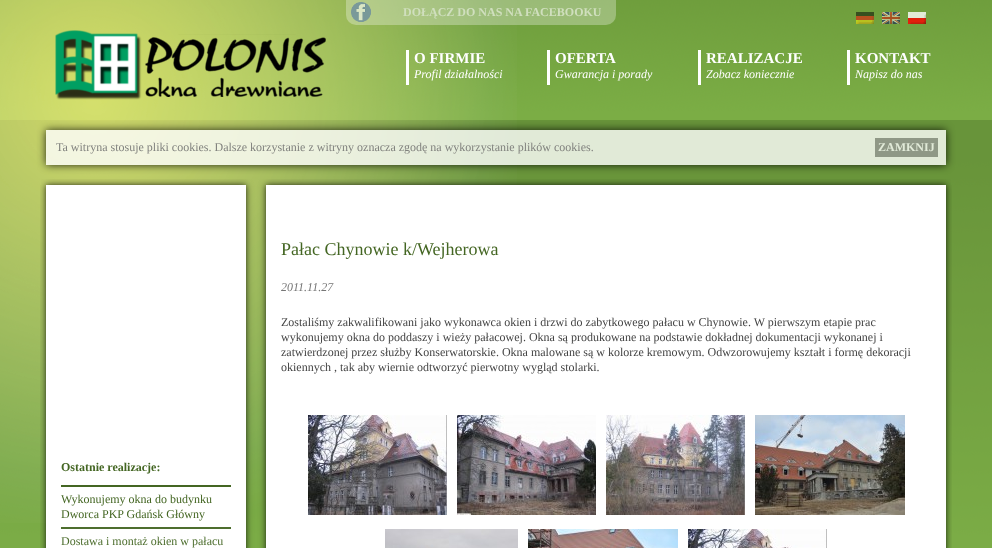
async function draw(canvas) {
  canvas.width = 992;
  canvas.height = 548;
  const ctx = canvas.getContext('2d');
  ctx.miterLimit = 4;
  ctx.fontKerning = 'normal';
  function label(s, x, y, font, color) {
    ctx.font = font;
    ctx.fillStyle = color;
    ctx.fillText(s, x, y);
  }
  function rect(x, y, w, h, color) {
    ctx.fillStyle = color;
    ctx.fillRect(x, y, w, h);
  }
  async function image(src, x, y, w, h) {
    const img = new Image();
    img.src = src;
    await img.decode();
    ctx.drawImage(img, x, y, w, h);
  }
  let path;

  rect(0, 0, 992, 548, '#fff');
  await image('assets/img1.png', 0, 0, 992, 548);
  await image('assets/img2.png', 0, 0, 517, 523);
  ctx.fillStyle = '#ffffff4d';
  ctx.beginPath();
  ctx.roundRect(346, 0, 270, 25, [0, 0, 10, 10]);
  ctx.fill();
  await image('assets/img3.png', 351, 2, 20, 20);
  label('DOŁĄCZ DO NAS NA FACEBOOKU', 403, 16, 'bold 12px Liberation Serif', '#d0dfbe');
  await image('assets/img4.png', 856, 12, 18, 12);
  await image('assets/img5.png', 882, 12, 18, 12);
  await image('assets/img6.png', 908, 12, 18, 12);
  await image('assets/img7.png', 55, 30, 271, 70);
  rect(406, 50, 3, 35, '#fff');
  label('O FIRMIE', 414, 63, 'bold 15px Liberation Serif', '#fff');
  label('Profil działalności', 414, 78, 'italic 12px Liberation Serif', '#fff');
  rect(547, 50, 3, 35, '#fff');
  label('OFERTA', 555, 63, 'bold 15px Liberation Serif', '#fff');
  label('Gwarancja i porady', 555, 78, 'italic 12px Liberation Serif', '#fff');
  rect(698, 50, 3, 35, '#fff');
  label('REALIZACJE', 706, 63, 'bold 15px Liberation Serif', '#fff');
  label('Zobacz koniecznie', 706, 78, 'italic 12px Liberation Serif', '#fff');
  rect(847, 50, 3, 35, '#fff');
  label('KONTAKT', 855, 63, 'bold 15px Liberation Serif', '#fff');
  label('Napisz do nas', 855, 78, 'italic 12px Liberation Serif', '#fff');
  ctx.save();
  path = new Path2D('M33 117H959V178H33ZM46 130H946V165H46Z');
  ctx.clip(path, 'evenodd');
  ctx.fillStyle = '#000000cc';
  ctx.filter = 'blur(4px)';
  ctx.beginPath();
  ctx.rect(46, 130, 900, 35);
  ctx.fill();
  ctx.filter = 'none';
  ctx.restore();
  rect(46, 130, 900, 35, '#ffffffcc');
  label('Ta witryna stosuje pliki cookies. Dalsze korzystanie z witryny oznacza zgodę na wykorzystanie plików cookies.', 56, 151, '12px Liberation Serif', '#81827e');
  rect(875, 138, 63, 19, '#8f9886');
  label('ZAMKNIJ', 878, 151, 'bold 12px Liberation Serif', '#e1ead8');
  await image('assets/img8.png', 41, 179, 910, 6);
  await image('assets/img9.png', 40, 185, 912, 10);
  await image('assets/img10.png', 40, 195, 912, 353);
  label('Pałac Chynowie k/Wejherowa', 281, 255, '18px Liberation Serif', '#446623');
  label('2011.11.27', 281, 291, 'italic 12px Liberation Serif', '#767676');
  label('Zostaliśmy zakwalifikowani jako wykonawca okien i drzwi do zabytkowego pałacu w Chynowie. W pierwszym etapie prac', 281, 326, '12px Liberation Serif', '#444');
  label('wykonujemy okna do poddaszy i wieży pałacowej. Okna są produkowane na podstawie dokładnej dokumentacji wykonanej i', 281, 341, '12px Liberation Serif', '#444');
  label('zatwierdzonej przez służby Konserwatorskie. Okna malowane są w kolorze kremowym. Odwzorowujemy kształt i formę dekoracji', 281, 356, '12px Liberation Serif', '#444');
  label('okiennych , tak aby wiernie odtworzyć pierwotny wygląd stolarki.', 281, 371, '12px Liberation Serif', '#444');
  await image('assets/img11.png', 308, 415, 139, 100);
  await image('assets/img12.png', 457, 415, 139, 100);
  await image('assets/img13.png', 606, 415, 139, 100);
  await image('assets/img14.png', 755, 415, 150, 100);
  await image('assets/img15.png', 385, 529, 133, 19);
  await image('assets/img16.png', 528, 529, 150, 19);
  await image('assets/img17.png', 688, 529, 139, 19);
  label('Ostatnie realizacje:', 61, 471, 'bold 12px Liberation Serif', '#446623');
  rect(61, 485, 170, 2, '#446623');
  label('Wykonujemy okna do budynku', 61, 503, '12px Liberation Serif', '#446623');
  label('Dworca PKP Gdańsk Główny', 61, 518, '12px Liberation Serif', '#446623');
  rect(61, 527, 170, 2, '#4d6e2e');
  label('Dostawa i montaż okien w pałacu', 61, 545, '12px Liberation Serif', '#4d6e2e');
}

draw(document.querySelector('canvas'));
